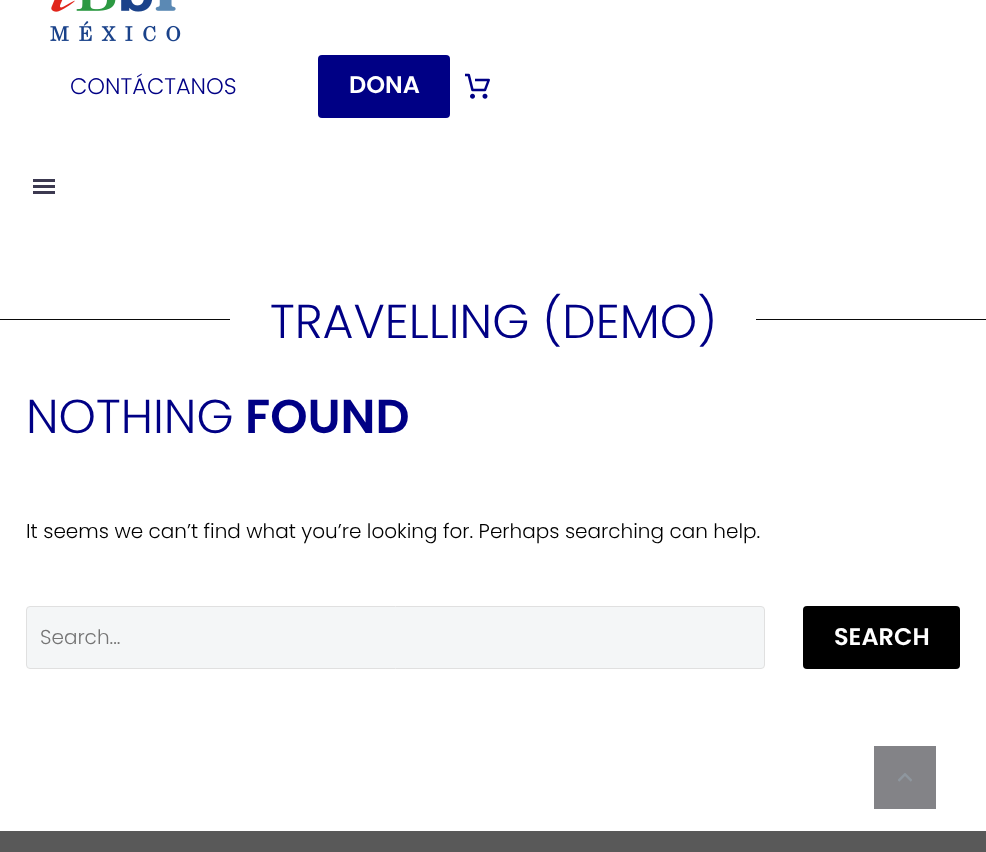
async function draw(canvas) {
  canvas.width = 986;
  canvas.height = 852;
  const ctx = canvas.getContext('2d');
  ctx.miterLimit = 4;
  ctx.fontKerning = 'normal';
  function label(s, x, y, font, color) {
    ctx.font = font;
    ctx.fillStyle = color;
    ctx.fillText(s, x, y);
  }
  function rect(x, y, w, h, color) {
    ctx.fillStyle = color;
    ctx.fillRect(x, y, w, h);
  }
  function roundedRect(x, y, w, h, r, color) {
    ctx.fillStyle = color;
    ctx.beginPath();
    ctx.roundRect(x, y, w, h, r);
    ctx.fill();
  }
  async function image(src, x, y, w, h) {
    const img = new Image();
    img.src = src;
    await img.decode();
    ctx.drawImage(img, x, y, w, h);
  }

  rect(0, 0, 986, 852, '#fff');
  await image('assets/img1.png', 50, 0, 131, 42);
  label('CONTÁCTANOS', 70, 94, '300 22.5px Poppins', '#000085');
  roundedRect(318, 55, 132, 63, 4, '#000085');
  label('DONA', 349, 93, '600 24px Poppins', '#fff');
  await image('assets/img2.png', 465, 73, 25, 26);
  rect(33, 179, 22, 3, '#3c3950');
  rect(33, 185, 22, 3, '#3c3950');
  rect(33, 191, 22, 3, '#3c3950');
  rect(0, 319, 986, 1, '#0a0a0a');
  rect(230, 319, 526, 1, '#fff');
  label('TRAVELLING (DEMO)', 270, 338, '300 47.5px Poppins', '#000085');
  label('NOTHING', 26, 433, '300 47.5px Poppins', '#000085');
  label('FOUND', 245, 433, '600 47.5px Poppins', '#000085');
  label('It seems we can’t find what you’re looking for. Perhaps searching can help.', 26, 538, '300 20px Poppins', '#000');
  ctx.fillStyle = '#f4f6f7';
  ctx.beginPath();
  ctx.roundRect(26.5, 606.5, 738, 62, 3.5);
  ctx.fill();
  ctx.strokeStyle = '#e0e0e0';
  ctx.stroke();
  label('Search...', 40, 644, '300 20px Poppins', '#757575');
  roundedRect(803, 606, 157, 63, 4, '#000');
  label('SEARCH', 834, 645, '600 24px Poppins', '#fff');
  rect(874, 746, 62, 63, '#838387');
  await image('assets/img3.png', 898, 773, 14, 9);
  rect(0, 831, 986, 21, '#595959');
}

draw(document.querySelector('canvas'));
